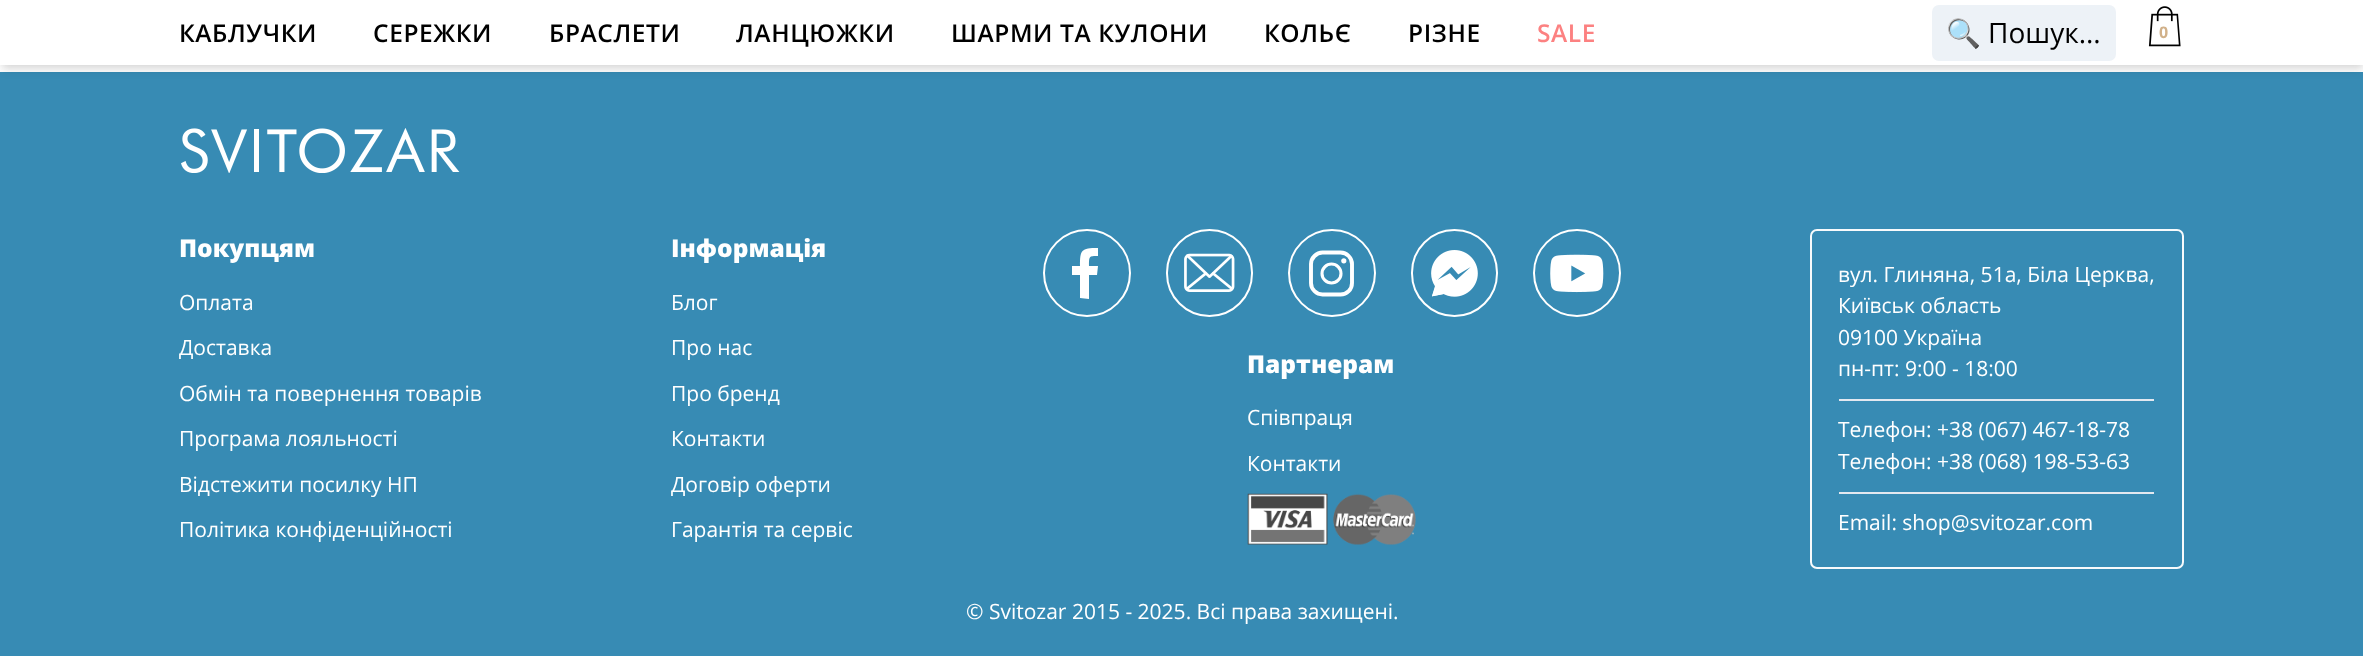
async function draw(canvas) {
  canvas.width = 2363;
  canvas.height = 656;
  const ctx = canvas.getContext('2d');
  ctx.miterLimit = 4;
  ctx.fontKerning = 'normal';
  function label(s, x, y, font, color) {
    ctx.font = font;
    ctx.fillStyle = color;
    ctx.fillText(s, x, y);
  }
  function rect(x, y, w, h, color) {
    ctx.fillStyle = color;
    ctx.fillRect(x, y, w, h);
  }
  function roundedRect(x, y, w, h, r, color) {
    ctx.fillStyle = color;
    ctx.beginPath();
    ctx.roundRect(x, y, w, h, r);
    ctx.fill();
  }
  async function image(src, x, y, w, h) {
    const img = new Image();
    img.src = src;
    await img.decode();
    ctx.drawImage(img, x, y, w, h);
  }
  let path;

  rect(0, 0, 2363, 656, '#fff');
  rect(0, 72, 2363, 584, '#378bb4');
  ctx.fillStyle = '#0000000f';
  ctx.filter = 'blur(3.5px)';
  ctx.beginPath();
  ctx.rect(2, 5, 2361, 62);
  ctx.fill();
  ctx.filter = 'none';
  ctx.fillStyle = '#0000001a';
  ctx.filter = 'blur(5px)';
  ctx.beginPath();
  ctx.rect(2, 9, 2361, 61);
  ctx.fill();
  ctx.filter = 'none';
  rect(0, 0, 2363, 65, '#fff');
  ctx.letterSpacing = '0.6px';
  label('КАБЛУЧКИ', 179, 42, '600 24.5px Open Sans', '#000');
  label('СЕРЕЖКИ', 373, 42, '600 24.5px Open Sans', '#000');
  label('БРАСЛЕТИ', 549, 42, '600 24.5px Open Sans', '#000');
  label('ЛАНЦЮЖКИ', 736, 42, '600 24.5px Open Sans', '#000');
  label('ШАРМИ ТА КУЛОНИ', 951, 42, '600 24.5px Open Sans', '#000');
  label('КОЛЬЄ', 1264, 42, '600 24.5px Open Sans', '#000');
  label('РІЗНЕ', 1408, 42, '600 24.5px Open Sans', '#000');
  label('SALE', 1537, 42, '600 24.5px Open Sans', '#fc8181');
  roundedRect(1932, 5, 184, 56, 7, '#edf2f7');
  ctx.letterSpacing = '0px';
  label('🔍', 1946, 43, '28px Noto Color Emoji', '#000');
  label('Пошук...', 1988, 43, '28px Open Sans', '#000');
  await image('assets/img1.png', 2148, 6, 33, 41);
  label('0', 2159, 38, 'bold 16px Open Sans', '#d1b18a');
  await image('assets/img2.png', 181, 128, 279, 45);
  label('Покупцям', 179, 257, '800 24.5px Open Sans', '#fff');
  label('Оплата', 179, 310, '21px Open Sans', '#fff');
  label('Доставка', 179, 355, '21px Open Sans', '#fff');
  label('Обмін та повернення товарів', 179, 401, '21px Open Sans', '#fff');
  label('Програма лояльності', 179, 446, '21px Open Sans', '#fff');
  label('Відстежити посилку НП', 179, 492, '21px Open Sans', '#fff');
  label('Політика конфіденційності', 179, 537, '21px Open Sans', '#fff');
  label('Інформація', 671, 257, '800 24.5px Open Sans', '#fff');
  label('Блог', 671, 310, '21px Open Sans', '#fff');
  label('Про нас', 671, 355, '21px Open Sans', '#fff');
  label('Про бренд', 671, 401, '21px Open Sans', '#fff');
  label('Контакти', 671, 446, '21px Open Sans', '#fff');
  label('Договір оферти', 671, 492, '21px Open Sans', '#fff');
  label('Гарантія та сервіс', 671, 537, '21px Open Sans', '#fff');
  ctx.beginPath();
  ctx.arc(1087, 273, 43, 0, 2 * Math.PI);
  ctx.strokeStyle = '#fff';
  ctx.lineWidth = 2;
  ctx.stroke();
  path = new Path2D('M1098 256C1089 256 1089 256 1089 266H1098L1097 275H1089V299L1080 298V275H1072V266H1080C1080 250 1081 248 1098 248Z');
  ctx.fill(path, 'evenodd');
  ctx.beginPath();
  ctx.roundRect(1167, 230, 85, 86, 42.5);
  ctx.stroke();
  await image('assets/img3.png', 1184, 253, 51, 39);
  ctx.beginPath();
  ctx.arc(1332, 273, 43, 0, 2 * Math.PI);
  ctx.stroke();
  path = new Path2D('M1352 264C1352 258 1347 252.5 1340.5 252.5H1322.5C1316.5 252.5 1311 258 1311 264V283C1311 289.5 1316.5 294.5 1322.5 294.5H1340.5C1347 294.5 1352 289.5 1352 283Z');
  ctx.lineWidth = 3.9;
  ctx.lineCap = 'round';
  ctx.lineJoin = 'round';
  ctx.stroke(path);
  ctx.beginPath();
  ctx.arc(1331.5, 273.5, 9.5, 0, 2 * Math.PI);
  ctx.lineWidth = 3.1;
  ctx.stroke();
  ctx.beginPath();
  ctx.arc(1343.8, 260.8, 2.6, 0, 2 * Math.PI);
  ctx.fill();
  ctx.beginPath();
  ctx.roundRect(1412, 230, 85, 86, 42.5);
  ctx.lineWidth = 2;
  ctx.lineJoin = 'miter';
  ctx.stroke();
  await image('assets/img4.png', 1431, 250, 47, 47);
  ctx.beginPath();
  ctx.arc(1577, 273, 43, 0, 2 * Math.PI);
  ctx.stroke();
  await image('assets/img5.png', 1550, 254, 54, 39);
  label('Партнерам', 1247, 373, '800 24.5px Open Sans', '#fff');
  label('Співпраця', 1247, 425, '21px Open Sans', '#fff');
  label('Контакти', 1247, 471, '21px Open Sans', '#fff');
  await image('assets/img6.png', 1247, 493, 169, 52);
  ctx.beginPath();
  ctx.roundRect(1811, 230, 372, 338, 6);
  ctx.strokeStyle = '#f7fafc';
  ctx.stroke();
  label('вул. Глиняна, 51а, Біла Церква,', 1838, 282, '21px Open Sans', '#fff');
  label('Київськ область', 1838, 313, '21px Open Sans', '#fff');
  label('09100 Україна', 1838, 345, '21px Open Sans', '#fff');
  label('пн-пт: 9:00 - 18:00', 1838, 376, '21px Open Sans', '#fff');
  rect(1839, 399, 315, 2, '#e2e8f0');
  label('Телефон: +38 (067) 467-18-78', 1838, 437, '21px Open Sans', '#fff');
  label('Телефон: +38 (068) 198-53-63', 1838, 469, '21px Open Sans', '#fff');
  rect(1839, 492, 315, 2, '#e2e8f0');
  label('Email: shop@svitozar.com', 1838, 530, '21px Open Sans', '#fff');
  label('© Svitozar 2015 - 2025. Всі права захищені.', 966, 619, '21px Open Sans', '#fff');
}

draw(document.querySelector('canvas'));
